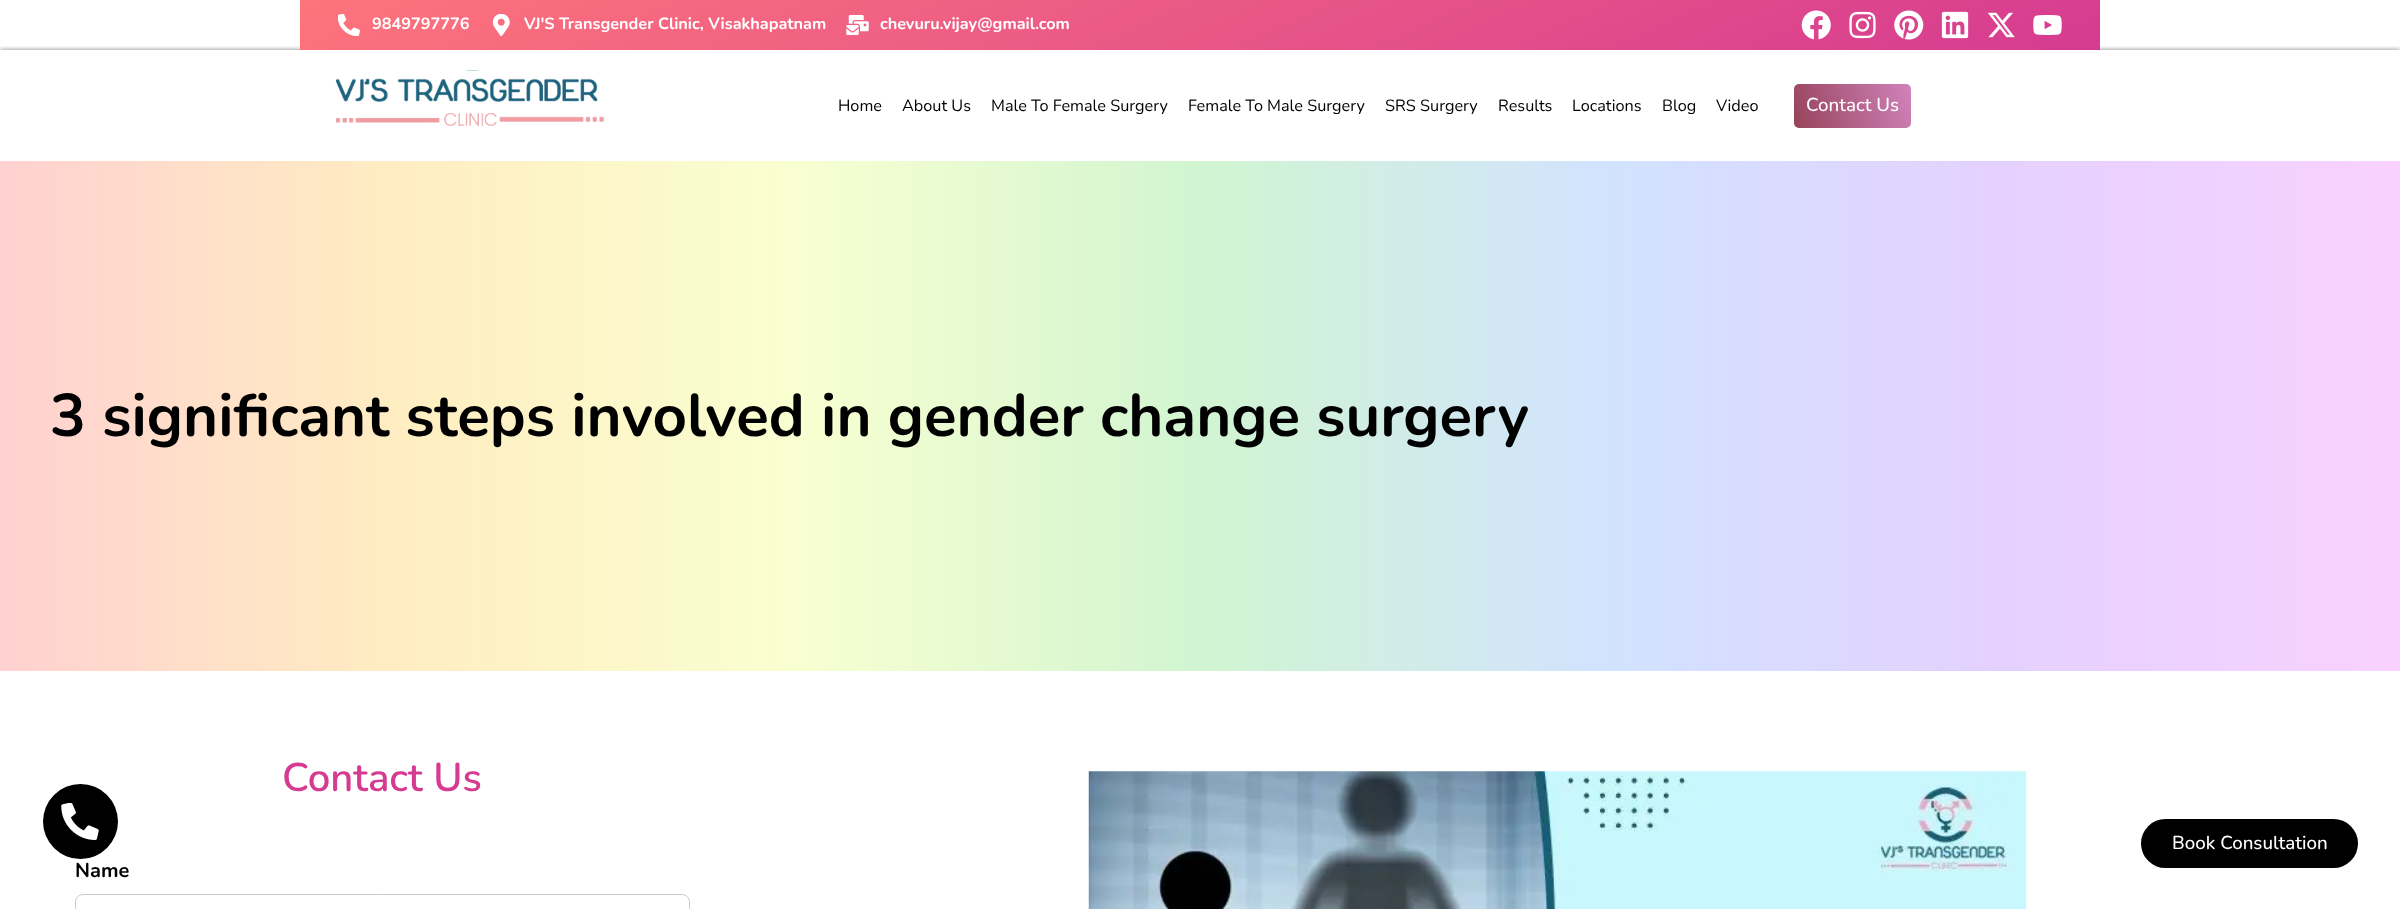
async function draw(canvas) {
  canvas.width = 2400;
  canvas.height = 909;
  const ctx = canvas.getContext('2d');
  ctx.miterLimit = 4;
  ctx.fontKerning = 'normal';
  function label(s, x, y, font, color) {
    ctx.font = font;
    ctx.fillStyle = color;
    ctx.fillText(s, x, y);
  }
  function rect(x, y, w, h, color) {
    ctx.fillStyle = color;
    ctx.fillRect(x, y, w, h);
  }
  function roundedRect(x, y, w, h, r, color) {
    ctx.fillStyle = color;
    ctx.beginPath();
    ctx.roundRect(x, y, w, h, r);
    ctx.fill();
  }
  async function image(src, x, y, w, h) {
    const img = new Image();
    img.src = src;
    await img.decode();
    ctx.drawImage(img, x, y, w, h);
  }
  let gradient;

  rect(0, 0, 2400, 909, '#fff');
  ctx.save();
  ctx.beginPath();
  ctx.rect(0, 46, 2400, 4);
  ctx.clip();
  ctx.fillStyle = '#00000080';
  ctx.filter = 'blur(2.5px)';
  ctx.beginPath();
  ctx.rect(0, 50, 2400, 111);
  ctx.fill();
  ctx.filter = 'none';
  ctx.restore();
  gradient = ctx.createLinearGradient(1358, 380, 1042, -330);
  gradient.addColorStop(0, '#d53b91');
  gradient.addColorStop(1, '#fe747b');
  ctx.fillStyle = gradient;
  ctx.fillRect(300, 0, 1800, 50);
  await image('assets/img1.png', 338, 14, 22, 22);
  label('9849797776', 372, 29, 'bold 16.25px Nunito', '#fff');
  await image('assets/img2.png', 492, 14, 18, 22);
  label('VJ\'S Transgender Clinic, Visakhapatnam', 524, 29, 'bold 16.25px Nunito', '#fff');
  await image('assets/img3.png', 846, 15, 23, 20);
  label('chevuru.vijay@gmail.com', 880, 29, 'bold 16.25px Nunito', '#fff');
  await image('assets/img4.png', 1801, 10, 30, 30);
  await image('assets/img5.png', 1849, 11, 27, 28);
  await image('assets/img6.png', 1894, 10, 30, 30);
  await image('assets/img7.png', 1941, 11, 28, 28);
  await image('assets/img8.png', 1987, 12, 28, 26);
  await image('assets/img9.png', 2033, 15, 29, 20);
  await image('assets/img10.png', 335, 70, 269, 56);
  label('Home', 838, 111, '16.25px Nunito', '#000');
  label('About Us', 902, 111, '16.25px Nunito', '#000');
  label('Male To Female Surgery', 991, 111, '16.25px Nunito', '#000');
  label('Female To Male Surgery', 1188, 111, '16.25px Nunito', '#000');
  label('SRS Surgery', 1385, 111, '16.25px Nunito', '#000');
  label('Results', 1498, 111, '16.25px Nunito', '#000');
  label('Locations', 1572, 111, '16.25px Nunito', '#000');
  label('Blog', 1662, 111, '16.25px Nunito', '#000');
  label('Video', 1716, 111, '16.25px Nunito', '#000');
  gradient = ctx.createLinearGradient(1911, 84, 1794, 127);
  gradient.addColorStop(0, '#d183bb');
  gradient.addColorStop(1, '#97435b');
  ctx.fillStyle = gradient;
  ctx.beginPath();
  ctx.roundRect(1794, 84, 117, 44, 5);
  ctx.fill();
  label('Contact Us', 1806, 111, '500 18.75px Nunito', '#fff');
  gradient = ctx.createLinearGradient(0, 416, 2400, 416);
  gradient.addColorStop(0, '#ffd1d1');
  gradient.addColorStop(0.17, '#ffeec1');
  gradient.addColorStop(0.33, '#f9ffd1');
  gradient.addColorStop(0.5, '#d1f5d1');
  gradient.addColorStop(0.67, '#d1e3ff');
  gradient.addColorStop(0.83, '#e4d1ff');
  gradient.addColorStop(1, '#f9d1ff');
  ctx.fillStyle = gradient;
  ctx.fillRect(0, 161, 2400, 510);
  label('3 significant steps involved in gender change surgery', 50, 436, 'bold 60px Nunito', '#000');
  label('Contact Us', 282, 791, '600 40px Nunito', '#d53b91');
  label('Name', 75, 877, 'bold 20px Nunito', '#000');
  ctx.beginPath();
  ctx.roundRect(75.5, 894.5, 614, 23, 7.5);
  ctx.strokeStyle = '#ccc';
  ctx.stroke();
  await image('assets/img11.png', 1088, 771, 939, 138);
  ctx.beginPath();
  ctx.arc(80.5, 821.5, 37.5, 0, 2 * Math.PI);
  ctx.fill();
  await image('assets/img12.png', 61, 803, 38, 37);
  roundedRect(2141, 819, 217, 49, 24.5, '#000');
  label('Book Consultation', 2172, 849, '500 18.75px Nunito', '#fff');
}

draw(document.querySelector('canvas'));
